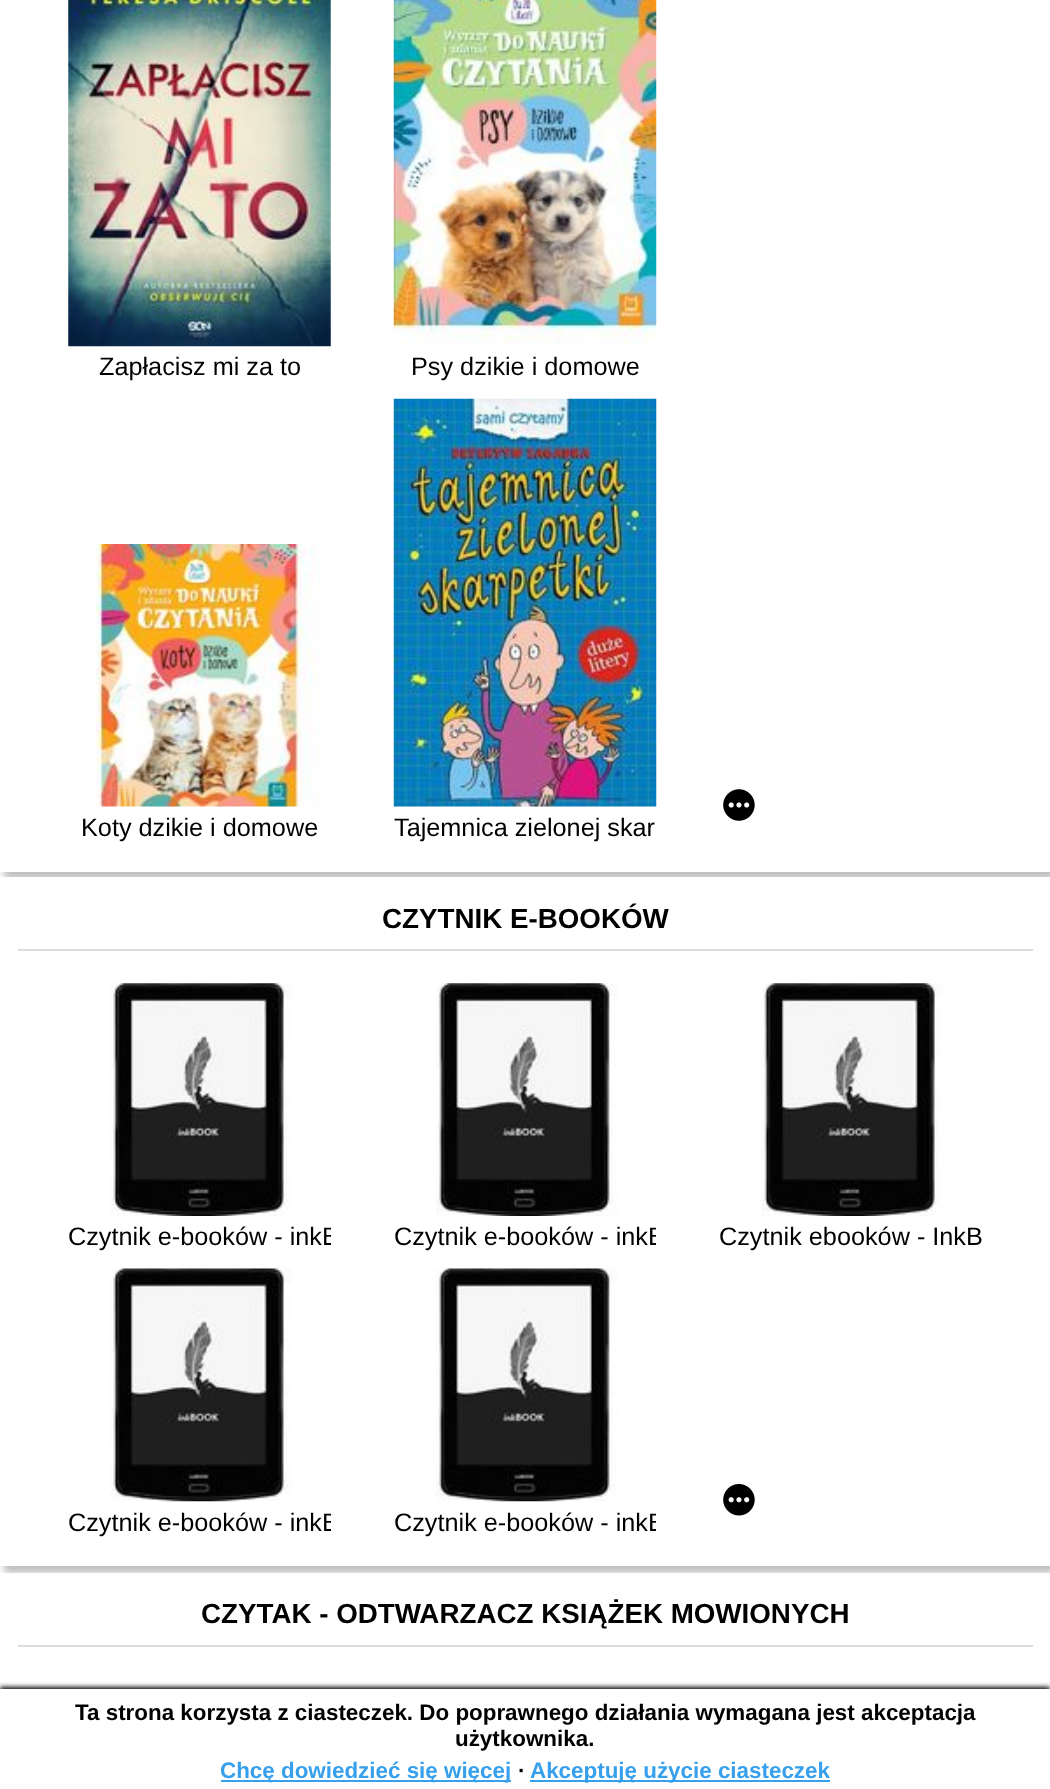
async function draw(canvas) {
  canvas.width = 1050;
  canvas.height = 1789;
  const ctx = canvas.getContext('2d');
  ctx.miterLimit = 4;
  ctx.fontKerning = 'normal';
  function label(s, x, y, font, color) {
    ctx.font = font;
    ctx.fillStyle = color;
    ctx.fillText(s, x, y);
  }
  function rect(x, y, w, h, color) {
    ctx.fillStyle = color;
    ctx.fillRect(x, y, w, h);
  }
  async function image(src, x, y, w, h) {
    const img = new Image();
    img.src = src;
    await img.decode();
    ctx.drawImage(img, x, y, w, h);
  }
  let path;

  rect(0, 0, 1050, 1789, '#fff');
  ctx.save();
  path = new Path2D('M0 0H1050V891H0ZM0-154H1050V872H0Z');
  ctx.clip(path, 'evenodd');
  ctx.fillStyle = '#00000040';
  ctx.filter = 'blur(3.5px)';
  ctx.beginPath();
  ctx.rect(4, -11, 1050, 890);
  ctx.fill();
  ctx.filter = 'none';
  ctx.restore();
  rect(0, 871, 1050, 1, '#fffffff2');
  await image('assets/img1.png', 68, 0, 263, 347);
  label('Zapłacisz mi za to', 99, 375, '25.25px Liberation Sans', '#000');
  await image('assets/img2.png', 393, 0, 264, 346);
  label('Psy dzikie i domowe', 411, 375, '25.25px Liberation Sans', '#000');
  await image('assets/img3.png', 723, 789, 32, 32);
  await image('assets/img4.png', 728, 802, 22, 6);
  await image('assets/img5.png', 95, 544, 226, 263);
  label('Koty dzikie i domowe', 81, 836, '25.25px Liberation Sans', '#000');
  await image('assets/img6.png', 393, 398, 264, 409);
  label('Tajemnica zielonej skar', 394, 836, '25.25px Liberation Sans', '#000');
  ctx.save();
  ctx.beginPath();
  ctx.rect(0, 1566, 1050, 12);
  ctx.clip();
  ctx.fillStyle = '#00000040';
  ctx.filter = 'blur(3.5px)';
  ctx.beginPath();
  ctx.rect(4, 884, 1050, 689);
  ctx.fill();
  ctx.filter = 'none';
  ctx.restore();
  rect(0, 877, 1050, 8, '#fffffff2');
  rect(18, 949, 1015, 2, '#ddd');
  label('CZYTNIK E-BOOKÓW', 382, 928, 'bold 27.75px Liberation Sans', '#000');
  await image('assets/img7.png', 110, 983, 182, 233);
  ctx.save();
  ctx.beginPath();
  ctx.rect(68, 1223, 263, 35);
  ctx.clip();
  label('Czytnik e-booków - inkB', 68, 1245, '25.25px Liberation Sans', '#000');
  ctx.restore();
  await image('assets/img8.png', 436, 983, 182, 233);
  ctx.save();
  ctx.beginPath();
  ctx.rect(394, 1223, 262, 35);
  ctx.clip();
  label('Czytnik e-booków - inkB', 394, 1245, '25.25px Liberation Sans', '#000');
  ctx.restore();
  await image('assets/img7.png', 761, 983, 182, 233);
  label('Czytnik ebooków - InkB', 719, 1245, '25.25px Liberation Sans', '#000');
  await image('assets/img9.png', 723, 1484, 32, 32);
  await image('assets/img10.png', 728, 1497, 22, 6);
  await image('assets/img11.png', 110, 1268, 182, 234);
  ctx.save();
  ctx.beginPath();
  ctx.rect(68, 1509, 263, 36);
  ctx.clip();
  label('Czytnik e-booków - inkB', 68, 1531, '25.25px Liberation Sans', '#000');
  ctx.restore();
  await image('assets/img12.png', 435, 1268, 183, 234);
  ctx.save();
  ctx.beginPath();
  ctx.rect(394, 1509, 262, 36);
  ctx.clip();
  label('Czytnik e-booków - inkB', 394, 1531, '25.25px Liberation Sans', '#000');
  ctx.restore();
  rect(0, 1573, 1050, 6, '#fffffff2');
  rect(18, 1645, 1015, 2, '#ddd');
  label('CZYTAK - ODTWARZACZ KSIĄŻEK MOWIONYCH', 201, 1623, 'bold 27.75px Liberation Sans', '#000');
  ctx.filter = 'blur(2.5px)';
  ctx.beginPath();
  ctx.rect(0, 1687, 1050, 102);
  ctx.fill();
  ctx.filter = 'none';
  rect(0, 1689, 1050, 100, '#fff');
  label('Ta strona korzysta z ciasteczek. Do poprawnego działania wymagana jest akceptacja', 75, 1720, 'bold 22.4px Liberation Sans', '#000');
  label('użytkownika.', 455, 1746, 'bold 22.4px Liberation Sans', '#000');
  rect(221, 1780, 290, 2, '#36a0ec');
  label('Chcę dowiedzieć się więcej', 220, 1778, 'bold 22.4px Liberation Sans', '#36a0ec');
  label('∙', 518, 1778, 'bold 22.4px Liberation Sans', '#000');
  rect(530, 1780, 300, 2, '#36a0ec');
  label('Akceptuję użycie ciasteczek', 530, 1778, 'bold 22.4px Liberation Sans', '#36a0ec');
}

draw(document.querySelector('canvas'));
